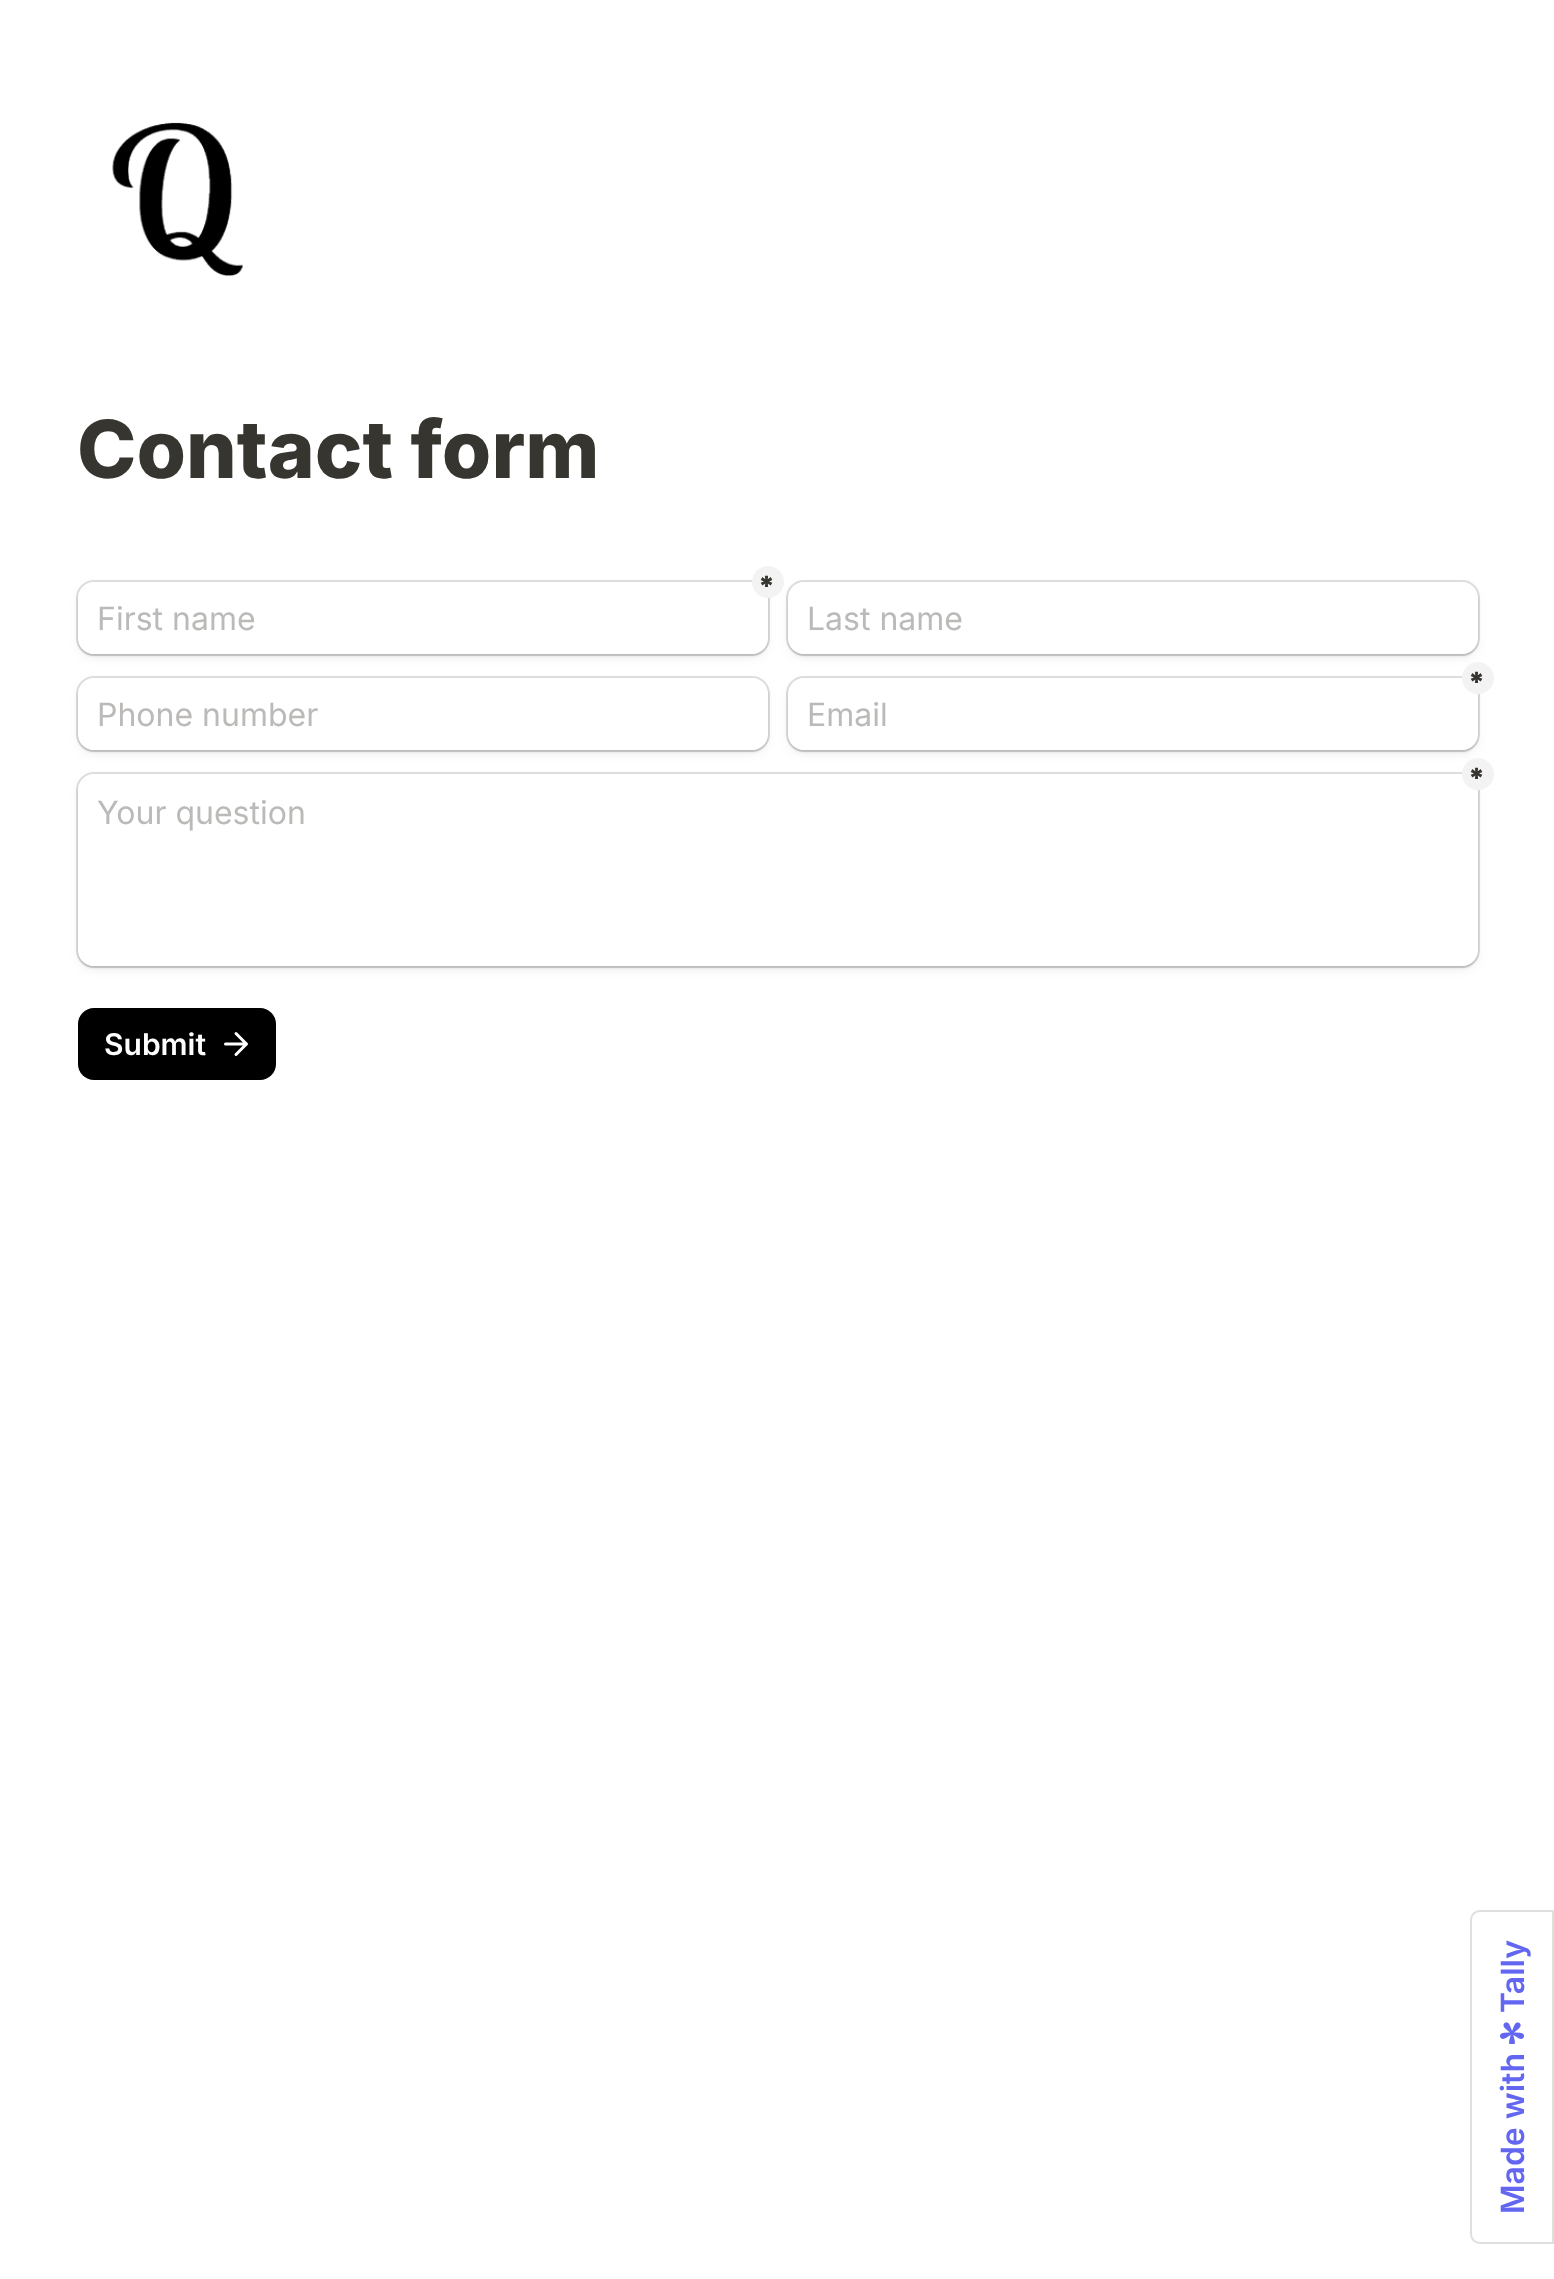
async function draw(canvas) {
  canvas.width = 1554;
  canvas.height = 2279;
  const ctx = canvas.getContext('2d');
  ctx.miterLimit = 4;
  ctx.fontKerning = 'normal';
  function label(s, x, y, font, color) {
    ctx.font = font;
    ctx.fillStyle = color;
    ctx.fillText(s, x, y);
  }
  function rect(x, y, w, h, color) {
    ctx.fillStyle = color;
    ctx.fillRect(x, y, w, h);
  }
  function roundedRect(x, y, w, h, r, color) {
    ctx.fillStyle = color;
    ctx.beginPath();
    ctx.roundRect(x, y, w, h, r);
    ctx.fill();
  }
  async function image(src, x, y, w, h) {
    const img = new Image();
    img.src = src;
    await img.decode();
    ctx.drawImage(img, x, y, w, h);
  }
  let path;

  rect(0, 0, 1554, 2279, '#fff');
  await image('assets/img1.png', 112, 122, 131, 155);
  label('Contact form', 77, 478, '800 80px Inter', '#37352f');
  ctx.save();
  path = new Path2D('M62 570H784V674H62ZM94 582H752C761 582 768 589 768 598V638C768 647 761 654 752 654H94C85 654 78 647 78 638V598C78 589 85 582 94 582Z');
  ctx.clip(path, 'evenodd');
  ctx.fillStyle = '#3d3b3514';
  ctx.filter = 'blur(5px)';
  ctx.beginPath();
  ctx.roundRect(78, 586, 690, 72, 16);
  ctx.fill();
  ctx.filter = 'none';
  ctx.restore();
  ctx.beginPath();
  ctx.roundRect(77, 581, 692, 74, 17);
  ctx.strokeStyle = '#3d3b3529';
  ctx.lineWidth = 2;
  ctx.stroke();
  ctx.save();
  path = new Path2D('M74 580H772V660H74ZM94 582H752C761 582 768 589 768 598V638C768 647 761 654 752 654H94C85 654 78 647 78 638V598C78 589 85 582 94 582Z');
  ctx.clip(path, 'evenodd');
  ctx.fillStyle = '#0000001f';
  ctx.filter = 'blur(1px)';
  ctx.beginPath();
  ctx.roundRect(78, 584, 690, 72, 16);
  ctx.fill();
  ctx.filter = 'none';
  ctx.restore();
  roundedRect(78, 582, 690, 72, 16, '#ffffff80');
  ctx.save();
  path = new Path2D('M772 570H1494V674H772ZM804 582H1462C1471 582 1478 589 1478 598V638C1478 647 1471 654 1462 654H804C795 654 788 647 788 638V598C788 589 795 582 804 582Z');
  ctx.clip(path, 'evenodd');
  ctx.fillStyle = '#3d3b3514';
  ctx.filter = 'blur(5px)';
  ctx.beginPath();
  ctx.roundRect(788, 586, 690, 72, 16);
  ctx.fill();
  ctx.filter = 'none';
  ctx.restore();
  ctx.fillStyle = '#f3f3f3';
  ctx.beginPath();
  ctx.arc(768, 582, 16, 0, 2 * Math.PI);
  ctx.fill();
  label('*', 758, 596, '900 28px Inter', '#37352f');
  label('First name', 97, 630, '32px Inter', '#bbbab8');
  ctx.beginPath();
  ctx.roundRect(787, 581, 692, 74, 17);
  ctx.stroke();
  ctx.save();
  path = new Path2D('M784 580H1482V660H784ZM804 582H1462C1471 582 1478 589 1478 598V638C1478 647 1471 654 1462 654H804C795 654 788 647 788 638V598C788 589 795 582 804 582Z');
  ctx.clip(path, 'evenodd');
  ctx.fillStyle = '#0000001f';
  ctx.filter = 'blur(1px)';
  ctx.beginPath();
  ctx.roundRect(788, 584, 690, 72, 16);
  ctx.fill();
  ctx.filter = 'none';
  ctx.restore();
  roundedRect(788, 582, 690, 72, 16, '#ffffff80');
  label('Last name', 807, 630, '32px Inter', '#bbbab8');
  ctx.save();
  path = new Path2D('M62 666H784V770H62ZM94 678H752C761 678 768 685 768 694V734C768 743 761 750 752 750H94C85 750 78 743 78 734V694C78 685 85 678 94 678Z');
  ctx.clip(path, 'evenodd');
  ctx.fillStyle = '#3d3b3514';
  ctx.filter = 'blur(5px)';
  ctx.beginPath();
  ctx.roundRect(78, 682, 690, 72, 16);
  ctx.fill();
  ctx.filter = 'none';
  ctx.restore();
  ctx.beginPath();
  ctx.roundRect(77, 677, 692, 74, 17);
  ctx.stroke();
  ctx.save();
  path = new Path2D('M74 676H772V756H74ZM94 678H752C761 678 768 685 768 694V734C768 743 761 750 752 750H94C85 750 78 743 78 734V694C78 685 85 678 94 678Z');
  ctx.clip(path, 'evenodd');
  ctx.fillStyle = '#0000001f';
  ctx.filter = 'blur(1px)';
  ctx.beginPath();
  ctx.roundRect(78, 680, 690, 72, 16);
  ctx.fill();
  ctx.filter = 'none';
  ctx.restore();
  roundedRect(78, 678, 690, 72, 16, '#ffffff80');
  label('Phone number', 97, 726, '32px Inter', '#bbbab8');
  ctx.save();
  path = new Path2D('M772 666H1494V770H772ZM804 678H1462C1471 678 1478 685 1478 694V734C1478 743 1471 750 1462 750H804C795 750 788 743 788 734V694C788 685 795 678 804 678Z');
  ctx.clip(path, 'evenodd');
  ctx.fillStyle = '#3d3b3514';
  ctx.filter = 'blur(5px)';
  ctx.beginPath();
  ctx.roundRect(788, 682, 690, 72, 16);
  ctx.fill();
  ctx.filter = 'none';
  ctx.restore();
  ctx.beginPath();
  ctx.roundRect(787, 677, 692, 74, 17);
  ctx.stroke();
  ctx.save();
  path = new Path2D('M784 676H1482V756H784ZM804 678H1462C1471 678 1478 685 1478 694V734C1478 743 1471 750 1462 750H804C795 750 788 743 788 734V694C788 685 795 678 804 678Z');
  ctx.clip(path, 'evenodd');
  ctx.fillStyle = '#0000001f';
  ctx.filter = 'blur(1px)';
  ctx.beginPath();
  ctx.roundRect(788, 680, 690, 72, 16);
  ctx.fill();
  ctx.filter = 'none';
  ctx.restore();
  roundedRect(788, 678, 690, 72, 16, '#ffffff80');
  ctx.fillStyle = '#f3f3f3';
  ctx.beginPath();
  ctx.arc(1478, 678, 16, 0, 2 * Math.PI);
  ctx.fill();
  label('*', 1468, 692, '900 28px Inter', '#37352f');
  label('Email', 807, 726, '32px Inter', '#bbbab8');
  ctx.save();
  path = new Path2D('M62 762H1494V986H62ZM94 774H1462C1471 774 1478 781 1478 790V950C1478 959 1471 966 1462 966H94C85 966 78 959 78 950V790C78 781 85 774 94 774Z');
  ctx.clip(path, 'evenodd');
  ctx.fillStyle = '#3d3b3514';
  ctx.filter = 'blur(5px)';
  ctx.beginPath();
  ctx.roundRect(78, 778, 1400, 192, 16);
  ctx.fill();
  ctx.filter = 'none';
  ctx.restore();
  ctx.beginPath();
  ctx.roundRect(77, 773, 1402, 194, 17);
  ctx.stroke();
  ctx.save();
  path = new Path2D('M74 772H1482V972H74ZM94 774H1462C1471 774 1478 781 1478 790V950C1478 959 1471 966 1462 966H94C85 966 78 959 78 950V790C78 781 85 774 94 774Z');
  ctx.clip(path, 'evenodd');
  ctx.fillStyle = '#0000001f';
  ctx.filter = 'blur(1px)';
  ctx.beginPath();
  ctx.roundRect(78, 776, 1400, 192, 16);
  ctx.fill();
  ctx.filter = 'none';
  ctx.restore();
  roundedRect(78, 774, 1400, 192, 16, '#ffffff80');
  ctx.fillStyle = '#f3f3f3';
  ctx.beginPath();
  ctx.arc(1478, 774, 16, 0, 2 * Math.PI);
  ctx.fill();
  label('*', 1468, 788, '900 28px Inter', '#37352f');
  label('Your question', 97, 824, '32px Inter', '#bbbab8');
  roundedRect(78, 1008, 198, 72, 16, '#000');
  label('Submit', 104, 1055, '600 30px Inter', '#fff');
  path = new Path2D('M225.5 1044H246.5M236 1033.5L246.5 1044L236 1054.5');
  ctx.strokeStyle = '#fff';
  ctx.lineWidth = 3;
  ctx.lineCap = 'round';
  ctx.lineJoin = 'round';
  ctx.stroke(path);
  path = new Path2D('M1553 2243H1480C1475 2243 1471 2239 1471 2234V1920C1471 1915 1475 1911 1480 1911H1553Z');
  ctx.strokeStyle = '#dfdfde';
  ctx.lineWidth = 2;
  ctx.lineCap = 'butt';
  ctx.lineJoin = 'miter';
  ctx.stroke(path);
  ctx.font = '600 32px Inter';
  ctx.fillStyle = '#6366f1';
  ctx.save();
  ctx.translate(1524, 2013);
  ctx.rotate(-90 * Math.PI / 180);
  ctx.fillText('Tally', 0, 0);
  ctx.restore();
  await image('assets/img2.png', 1500, 2022, 24, 22);
  ctx.save();
  ctx.translate(1524, 2214);
  ctx.rotate(-90 * Math.PI / 180);
  ctx.fillText('Made with', 0, 0);
  ctx.restore();
}

draw(document.querySelector('canvas'));
